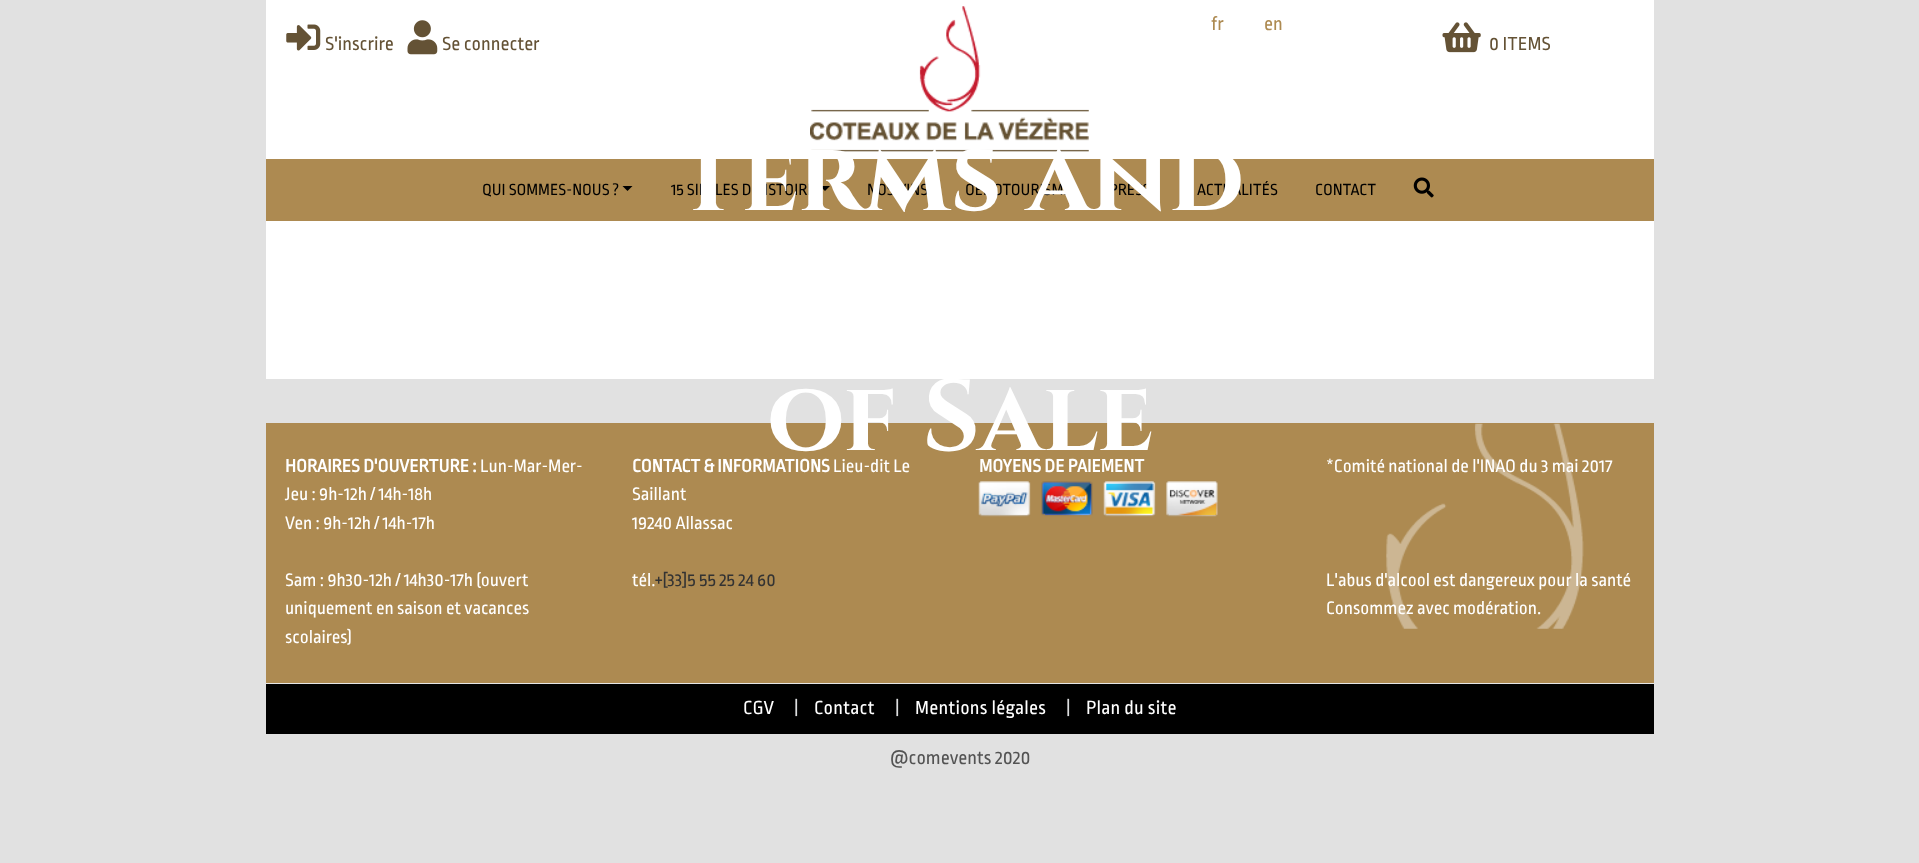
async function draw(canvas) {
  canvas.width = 1919;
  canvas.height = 863;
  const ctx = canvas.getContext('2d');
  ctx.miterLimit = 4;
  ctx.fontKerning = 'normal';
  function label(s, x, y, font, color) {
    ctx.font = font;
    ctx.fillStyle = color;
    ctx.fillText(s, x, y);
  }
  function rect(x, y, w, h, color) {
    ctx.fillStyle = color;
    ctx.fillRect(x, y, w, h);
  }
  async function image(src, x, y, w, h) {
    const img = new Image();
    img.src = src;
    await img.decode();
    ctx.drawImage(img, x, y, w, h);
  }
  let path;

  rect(0, 0, 1919, 863, '#e1e1e1');
  rect(266, 0, 1388, 159, '#fff');
  await image('assets/img1.png', 810, 6, 279, 146);
  label('fr', 1211, 30, '20px Ropa Sans', '#ad8a51');
  label('en', 1264, 30, '20px Ropa Sans', '#ad8a51');
  await image('assets/img2.png', 286, 24, 35, 27);
  label('S\'inscrire', 325, 50, '20px Ropa Sans', '#645235');
  await image('assets/img3.png', 407, 20, 31, 35);
  label('Se connecter', 442, 50, '20px Ropa Sans', '#645235');
  await image('assets/img4.png', 1442, 22, 39, 31);
  label('0 ITEMS', 1489, 50, '20px Ropa Sans', '#645235');
  rect(266, 159, 1388, 62, '#ad8a51');
  label('QUI SOMMES-NOUS ?', 482, 195, '17px Ropa Sans', '#000');
  path = new Path2D('M622.5 186H632.5L627.5 191Z');
  ctx.fill(path);
  label('15 SIÈCLES D\'HISTOIRE', 671, 195, '17px Ropa Sans', '#000');
  path = new Path2D('M820 186H830L825 191Z');
  ctx.fill(path);
  label('NOS VINS', 867, 195, '17px Ropa Sans', '#000');
  label('OENOTOURISME', 965, 195, '17px Ropa Sans', '#000');
  label('PRESSE', 1109, 195, '17px Ropa Sans', '#000');
  label('ACTUALITÉS', 1197, 195, '17px Ropa Sans', '#000');
  label('CONTACT', 1315, 195, '17px Ropa Sans', '#000');
  await image('assets/img5.png', 1413, 177, 21, 21);
  rect(266, 221, 1388, 158, '#fff');
  label('Terms and', 675, 210, 'bold 100px Cinzel', '#fff');
  rect(266, 423, 1388, 260, '#ad8a51');
  label('of Sale', 767, 450, 'bold 100px Cinzel', '#fff');
  await image('assets/img6.png', 1386, 423, 198, 206);
  label('HORAIRES D\'OUVERTURE :', 285, 472, 'bold 19px Ropa Sans', '#fff');
  label('Lun-Mar-Mer-', 480, 472, '19px Ropa Sans', '#fff');
  label('Jeu : 9h-12h / 14h-18h', 285, 500, '19px Ropa Sans', '#fff');
  label('Ven : 9h-12h / 14h-17h', 285, 529, '19px Ropa Sans', '#fff');
  label('Sam : 9h30-12h / 14h30-17h (ouvert', 285, 586, '19px Ropa Sans', '#fff');
  label('uniquement en saison et vacances', 285, 614, '19px Ropa Sans', '#fff');
  label('scolaires)', 285, 643, '19px Ropa Sans', '#fff');
  label('CONTACT & INFORMATIONS', 632, 472, 'bold 19px Ropa Sans', '#fff');
  label('Lieu-dit Le', 833, 472, '19px Ropa Sans', '#fff');
  label('Saillant', 632, 500, '19px Ropa Sans', '#fff');
  label('19240 Allassac', 632, 529, '19px Ropa Sans', '#fff');
  label('tél.', 632, 586, '19px Ropa Sans', '#fff');
  label('+[33]5 55 25 24 60', 655, 586, '19px Ropa Sans', '#333');
  label('MOYENS DE PAIEMENT', 979, 472, 'bold 19px Ropa Sans', '#fff');
  await image('assets/img7.png', 978, 481, 240, 36);
  label('*Comité national de l\'INAO du 3 mai 2017', 1326, 472, '19px Ropa Sans', '#fff');
  label('L\'abus d\'alcool est dangereux pour la santé', 1326, 586, '19px Ropa Sans', '#fff');
  label('Consommez avec modération.', 1326, 614, '19px Ropa Sans', '#fff');
  rect(266, 683, 1388, 1, '#e6e6e6');
  rect(266, 684, 1388, 50, '#000');
  ctx.letterSpacing = '0.25px';
  label('CGV', 743, 714, '20px Ropa Sans', '#fff');
  label('|', 794, 714, '20px Ropa Sans', '#dcddde');
  label('Contact', 814, 714, '20px Ropa Sans', '#fff');
  label('|', 895, 714, '20px Ropa Sans', '#dcddde');
  label('Mentions légales', 915, 714, '20px Ropa Sans', '#fff');
  label('|', 1066, 714, '20px Ropa Sans', '#dcddde');
  label('Plan du site', 1086, 714, '20px Ropa Sans', '#fff');
  ctx.letterSpacing = '0px';
  label('@comevents 2020', 890, 764, '20px Ropa Sans', '#535353');
}

draw(document.querySelector('canvas'));
